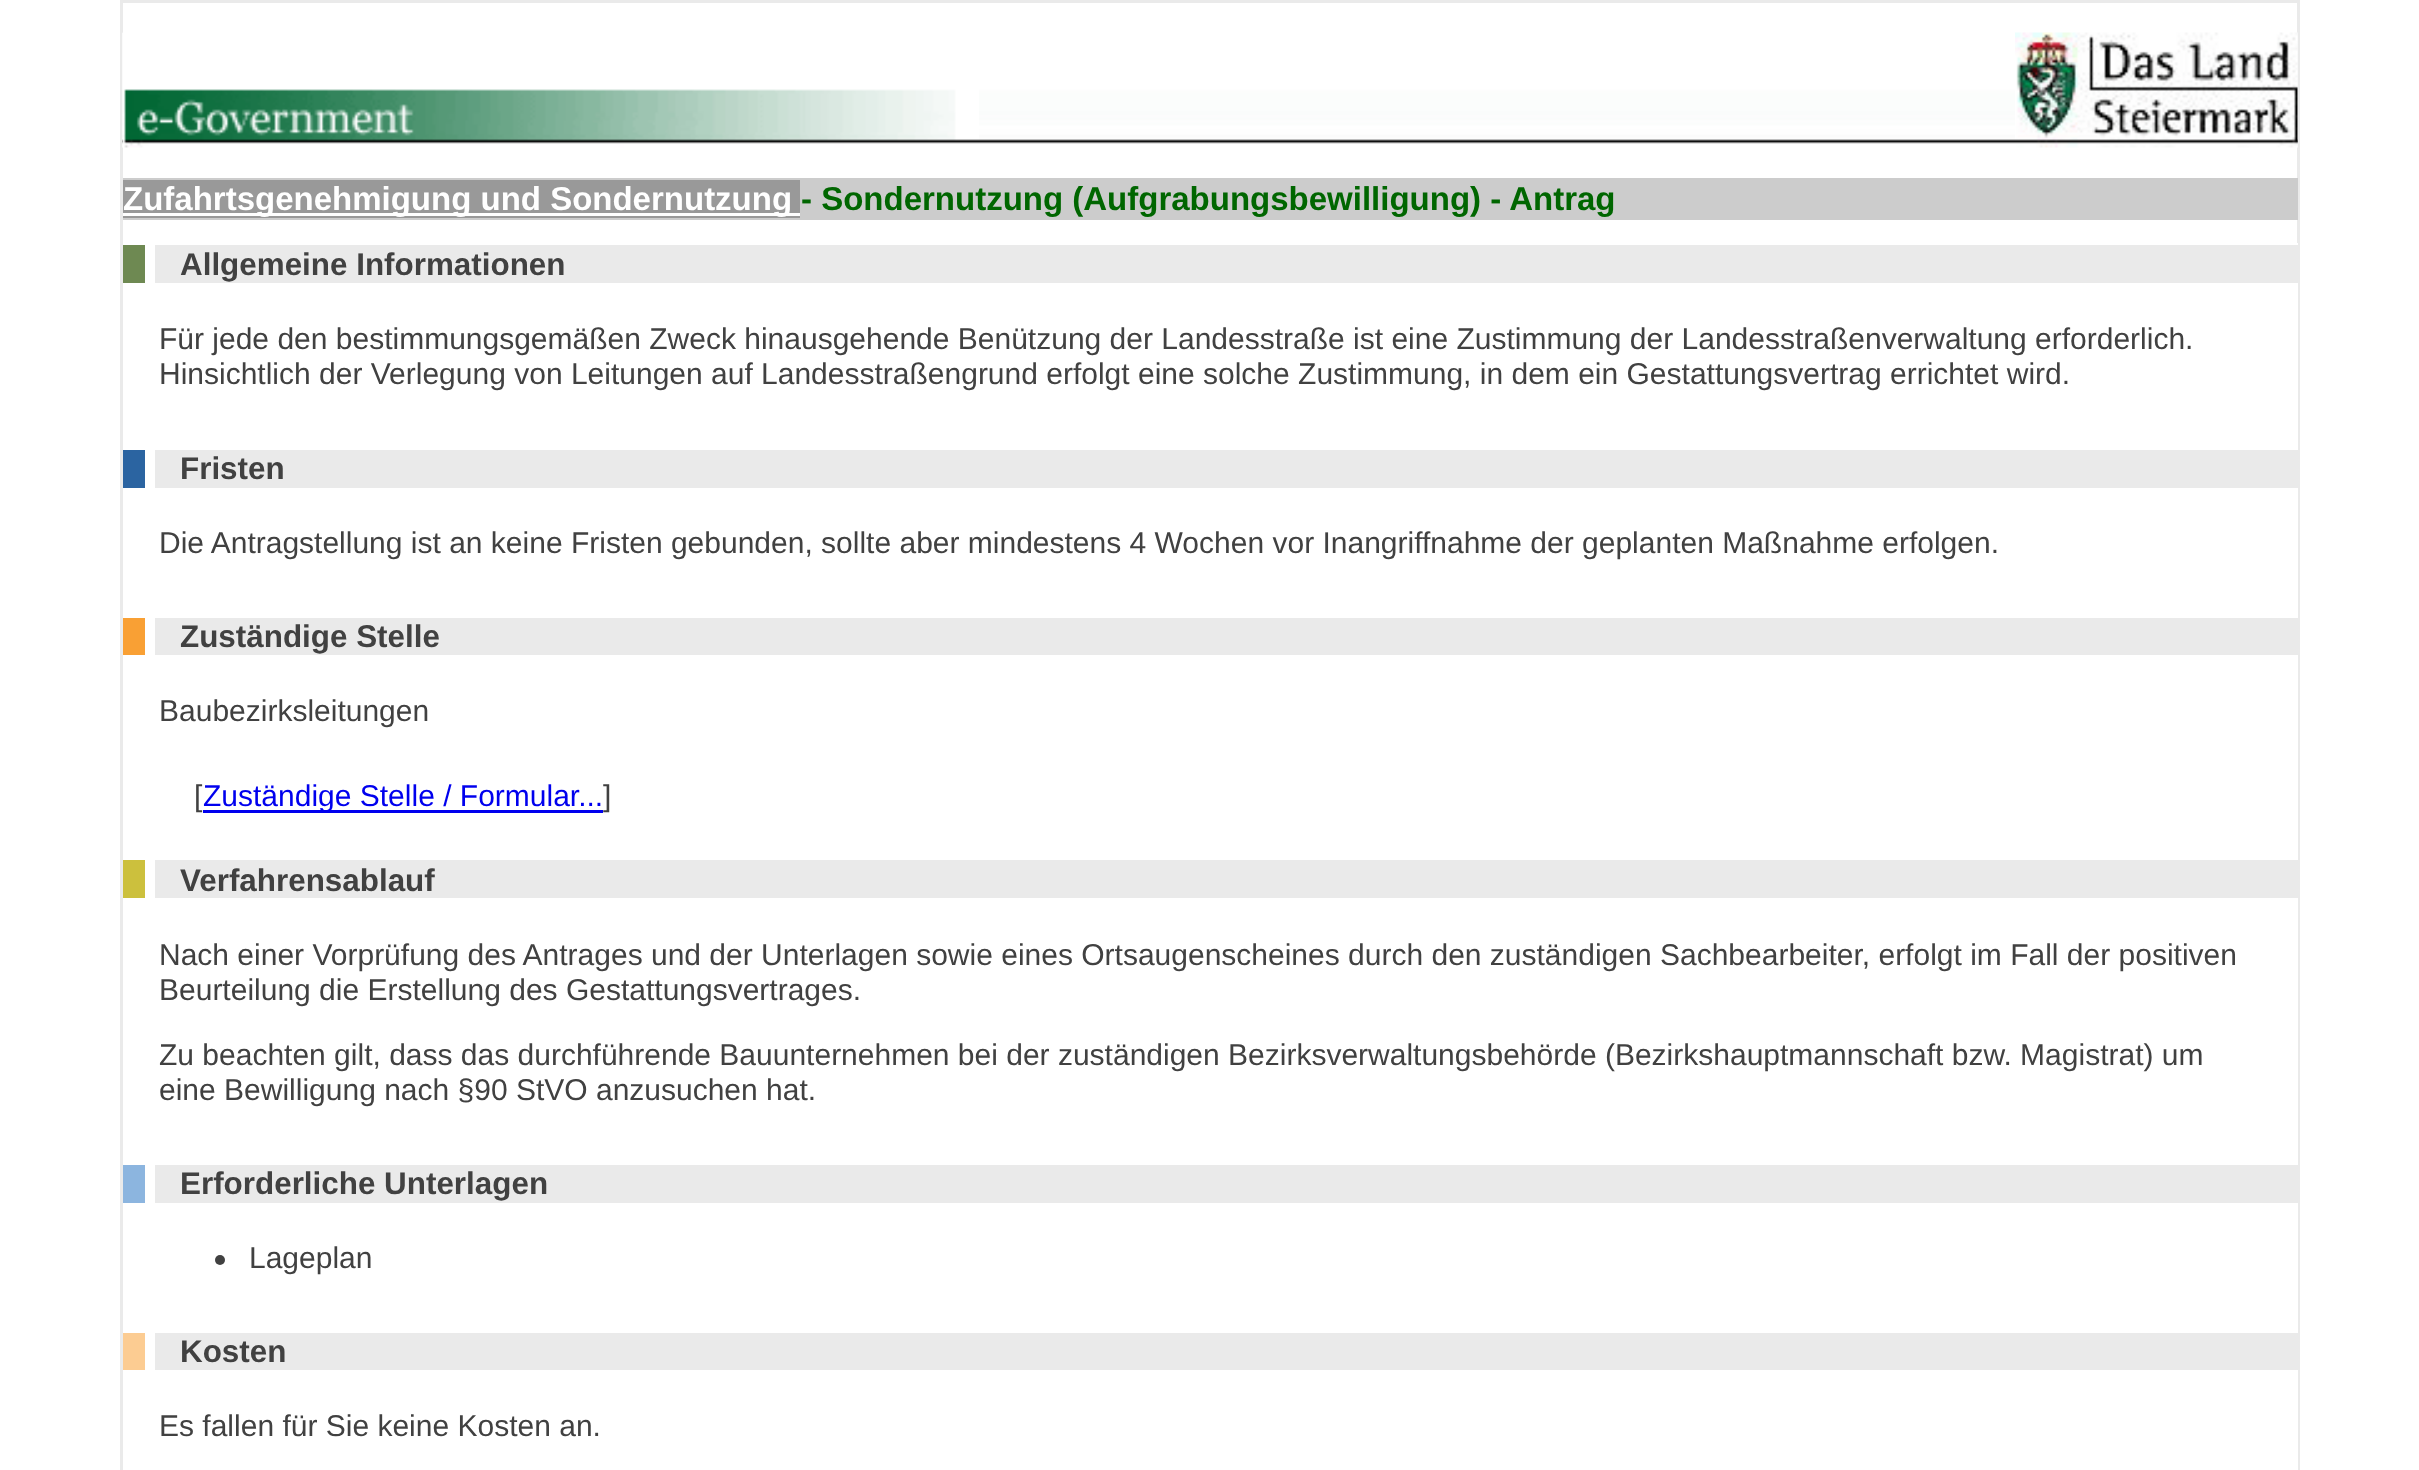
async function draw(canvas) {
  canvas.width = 2419;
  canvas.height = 1470;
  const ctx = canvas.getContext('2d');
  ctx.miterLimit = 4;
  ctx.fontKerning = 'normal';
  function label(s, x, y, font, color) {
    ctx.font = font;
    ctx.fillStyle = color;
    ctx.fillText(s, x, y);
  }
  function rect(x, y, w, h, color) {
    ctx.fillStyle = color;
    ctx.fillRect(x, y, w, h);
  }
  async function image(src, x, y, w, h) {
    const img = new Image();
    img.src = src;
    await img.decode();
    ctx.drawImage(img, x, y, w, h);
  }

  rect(0, 0, 2419, 1470, '#fff');
  ctx.strokeStyle = '#eaeaea';
  ctx.lineWidth = 3;
  ctx.strokeRect(121.5, 1.5, 2177, 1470);
  await image('assets/img1.png', 122, 32, 2176, 116);
  await image('assets/img2.png', 122, 33, 857, 115);
  await image('assets/img3.png', 2015, 32, 283, 116);
  rect(123, 178, 2175, 42, '#ccc');
  rect(123, 180, 677, 38, '#999');
  rect(123, 213, 677, 3, '#fff');
  label('Zufahrtsgenehmigung und Sondernutzung', 123, 210, 'bold 33px Liberation Sans', '#fff');
  label('- Sondernutzung (Aufgrabungsbewilligung) - Antrag', 801, 210, 'bold 33px Liberation Sans', '#060');
  rect(2297, 243, 1, 1227, '#fff');
  rect(155, 245, 2143, 38, '#eaeaea');
  rect(123, 245, 22, 38, '#6e8952');
  label('Allgemeine Informationen', 180, 275, 'bold 31.4px Liberation Sans', '#414141');
  label('Für jede den bestimmungsgemäßen Zweck hinausgehende Benützung der Landesstraße ist eine Zustimmung der Landesstraßenverwaltung erforderlich.', 159, 349, '30px Liberation Sans', '#414141');
  label('Hinsichtlich der Verlegung von Leitungen auf Landesstraßengrund erfolgt eine solche Zustimmung, in dem ein Gestattungsvertrag errichtet wird.', 159, 384, '30px Liberation Sans', '#414141');
  rect(155, 450, 2143, 38, '#eaeaea');
  rect(123, 450, 22, 38, '#2b64a1');
  label('Fristen', 180, 479, 'bold 31.4px Liberation Sans', '#414141');
  label('Die Antragstellung ist an keine Fristen gebunden, sollte aber mindestens 4 Wochen vor Inangriffnahme der geplanten Maßnahme erfolgen.', 159, 553, '30px Liberation Sans', '#414141');
  rect(155, 618, 2143, 37, '#eaeaea');
  rect(123, 618, 22, 37, '#f9a034');
  label('Zuständige Stelle', 180, 647, 'bold 31.4px Liberation Sans', '#414141');
  label('Baubezirksleitungen', 159, 721, '30px Liberation Sans', '#414141');
  label('[', 194, 806, '30px Liberation Sans', '#414141');
  rect(203, 810, 400, 3, '#00e');
  label('Zuständige Stelle / Formular...', 203, 806, '30px Liberation Sans', '#00e');
  label(']', 603, 806, '30px Liberation Sans', '#414141');
  rect(155, 860, 2143, 38, '#eaeaea');
  rect(123, 860, 22, 38, '#ccc03d');
  label('Verfahrensablauf', 180, 891, 'bold 31.4px Liberation Sans', '#414141');
  label('Nach einer Vorprüfung des Antrages und der Unterlagen sowie eines Ortsaugenscheines durch den zuständigen Sachbearbeiter, erfolgt im Fall der positiven', 159, 965, '30px Liberation Sans', '#414141');
  label('Beurteilung die Erstellung des Gestattungsvertrages.', 159, 1000, '30px Liberation Sans', '#414141');
  label('Zu beachten gilt, dass das durchführende Bauunternehmen bei der zuständigen Bezirksverwaltungsbehörde (Bezirkshauptmannschaft bzw. Magistrat) um', 159, 1065, '30px Liberation Sans', '#414141');
  label('eine Bewilligung nach §90 StVO anzusuchen hat.', 159, 1100, '30px Liberation Sans', '#414141');
  rect(155, 1165, 2143, 38, '#eaeaea');
  rect(123, 1165, 22, 38, '#8cb5df');
  label('Erforderliche Unterlagen', 180, 1194, 'bold 31.4px Liberation Sans', '#414141');
  ctx.beginPath();
  ctx.arc(220, 1260, 5, 0, 2 * Math.PI);
  ctx.fill();
  label('Lageplan', 249, 1268, '30px Liberation Sans', '#414141');
  rect(155, 1333, 2143, 37, '#eaeaea');
  rect(123, 1333, 22, 37, '#fccc92');
  label('Kosten', 180, 1362, 'bold 31.4px Liberation Sans', '#414141');
  label('Es fallen für Sie keine Kosten an.', 159, 1436, '30px Liberation Sans', '#414141');
}

draw(document.querySelector('canvas'));
